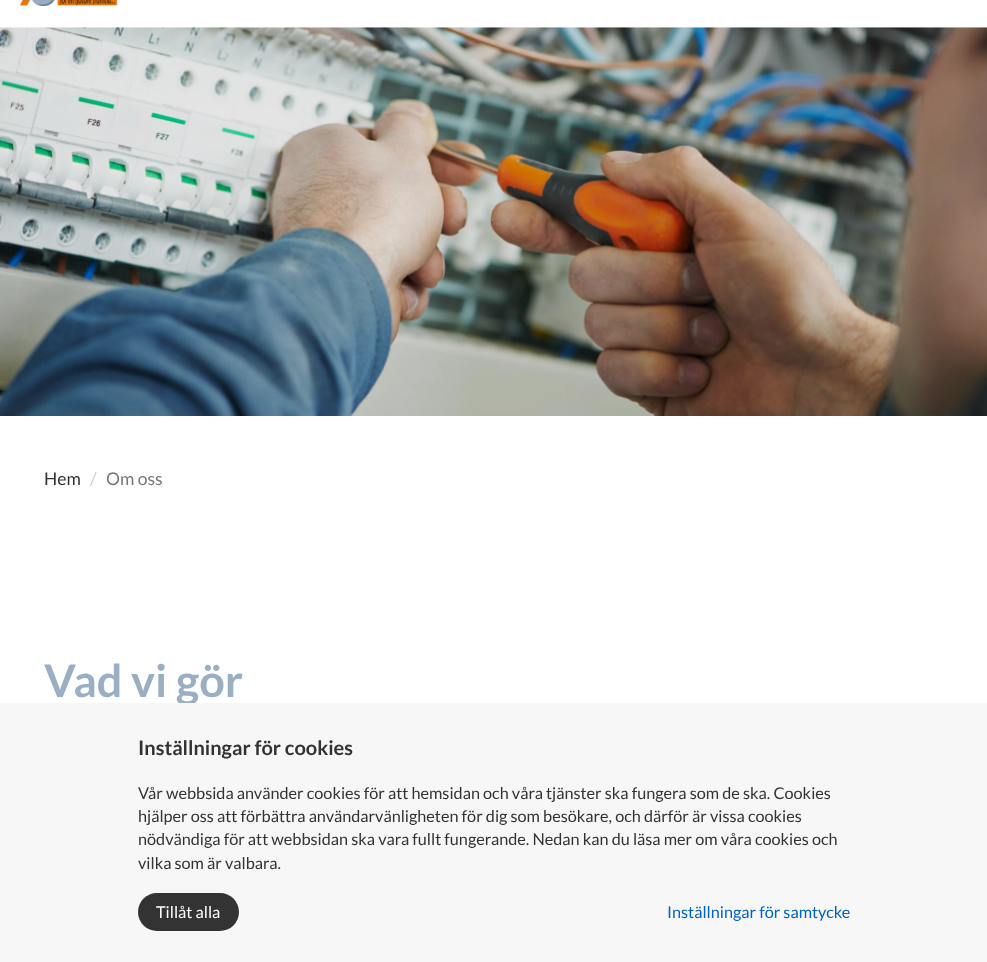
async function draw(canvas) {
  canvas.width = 987;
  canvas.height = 962;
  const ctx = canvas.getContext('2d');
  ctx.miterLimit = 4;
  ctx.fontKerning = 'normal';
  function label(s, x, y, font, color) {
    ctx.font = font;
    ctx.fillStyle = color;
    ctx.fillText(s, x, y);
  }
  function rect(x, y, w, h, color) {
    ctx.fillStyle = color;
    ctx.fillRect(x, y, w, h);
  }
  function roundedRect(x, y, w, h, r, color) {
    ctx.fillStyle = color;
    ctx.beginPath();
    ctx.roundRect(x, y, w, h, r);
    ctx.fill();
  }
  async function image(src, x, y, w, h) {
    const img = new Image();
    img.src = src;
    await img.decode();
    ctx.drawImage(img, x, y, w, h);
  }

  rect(0, 0, 987, 962, '#fff');
  await image('assets/img1.png', 20, 0, 98, 6);
  await image('assets/img2.png', 0, 27, 987, 389);
  label('Hem', 44, 485, '17.5px Lato', '#333');
  label('/', 90, 485, '17.5px Lato', '#ccc');
  label('Om oss', 106, 485, '17.5px Lato', '#777');
  label('Vad vi gör', 44, 697, 'bold 45px Lato', '#9aafc3');
  rect(0, 703, 987, 259, '#f7f7f7');
  label('Inställningar för cookies', 138, 755, 'bold 20px Lato', '#333');
  label('Vår webbsida använder cookies för att hemsidan och våra tjänster ska fungera som de ska. Cookies', 138, 799, '16.25px Lato', '#333');
  label('hjälper oss att förbättra användarvänligheten för dig som besökare, och därför är vissa cookies', 138, 822, '16.25px Lato', '#333');
  label('nödvändiga för att webbsidan ska vara fullt fungerande. Nedan kan du läsa mer om våra cookies och', 138, 845, '16.25px Lato', '#333');
  label('vilka som är valbara.', 138, 869, '16.25px Lato', '#333');
  roundedRect(138, 893, 101, 38, 19, '#333');
  label('Tillåt alla', 156, 918, '16.25px Lato', '#fff');
  label('Inställningar för samtycke', 667, 918, '16.25px Lato', '#0062cc');
}

draw(document.querySelector('canvas'));
